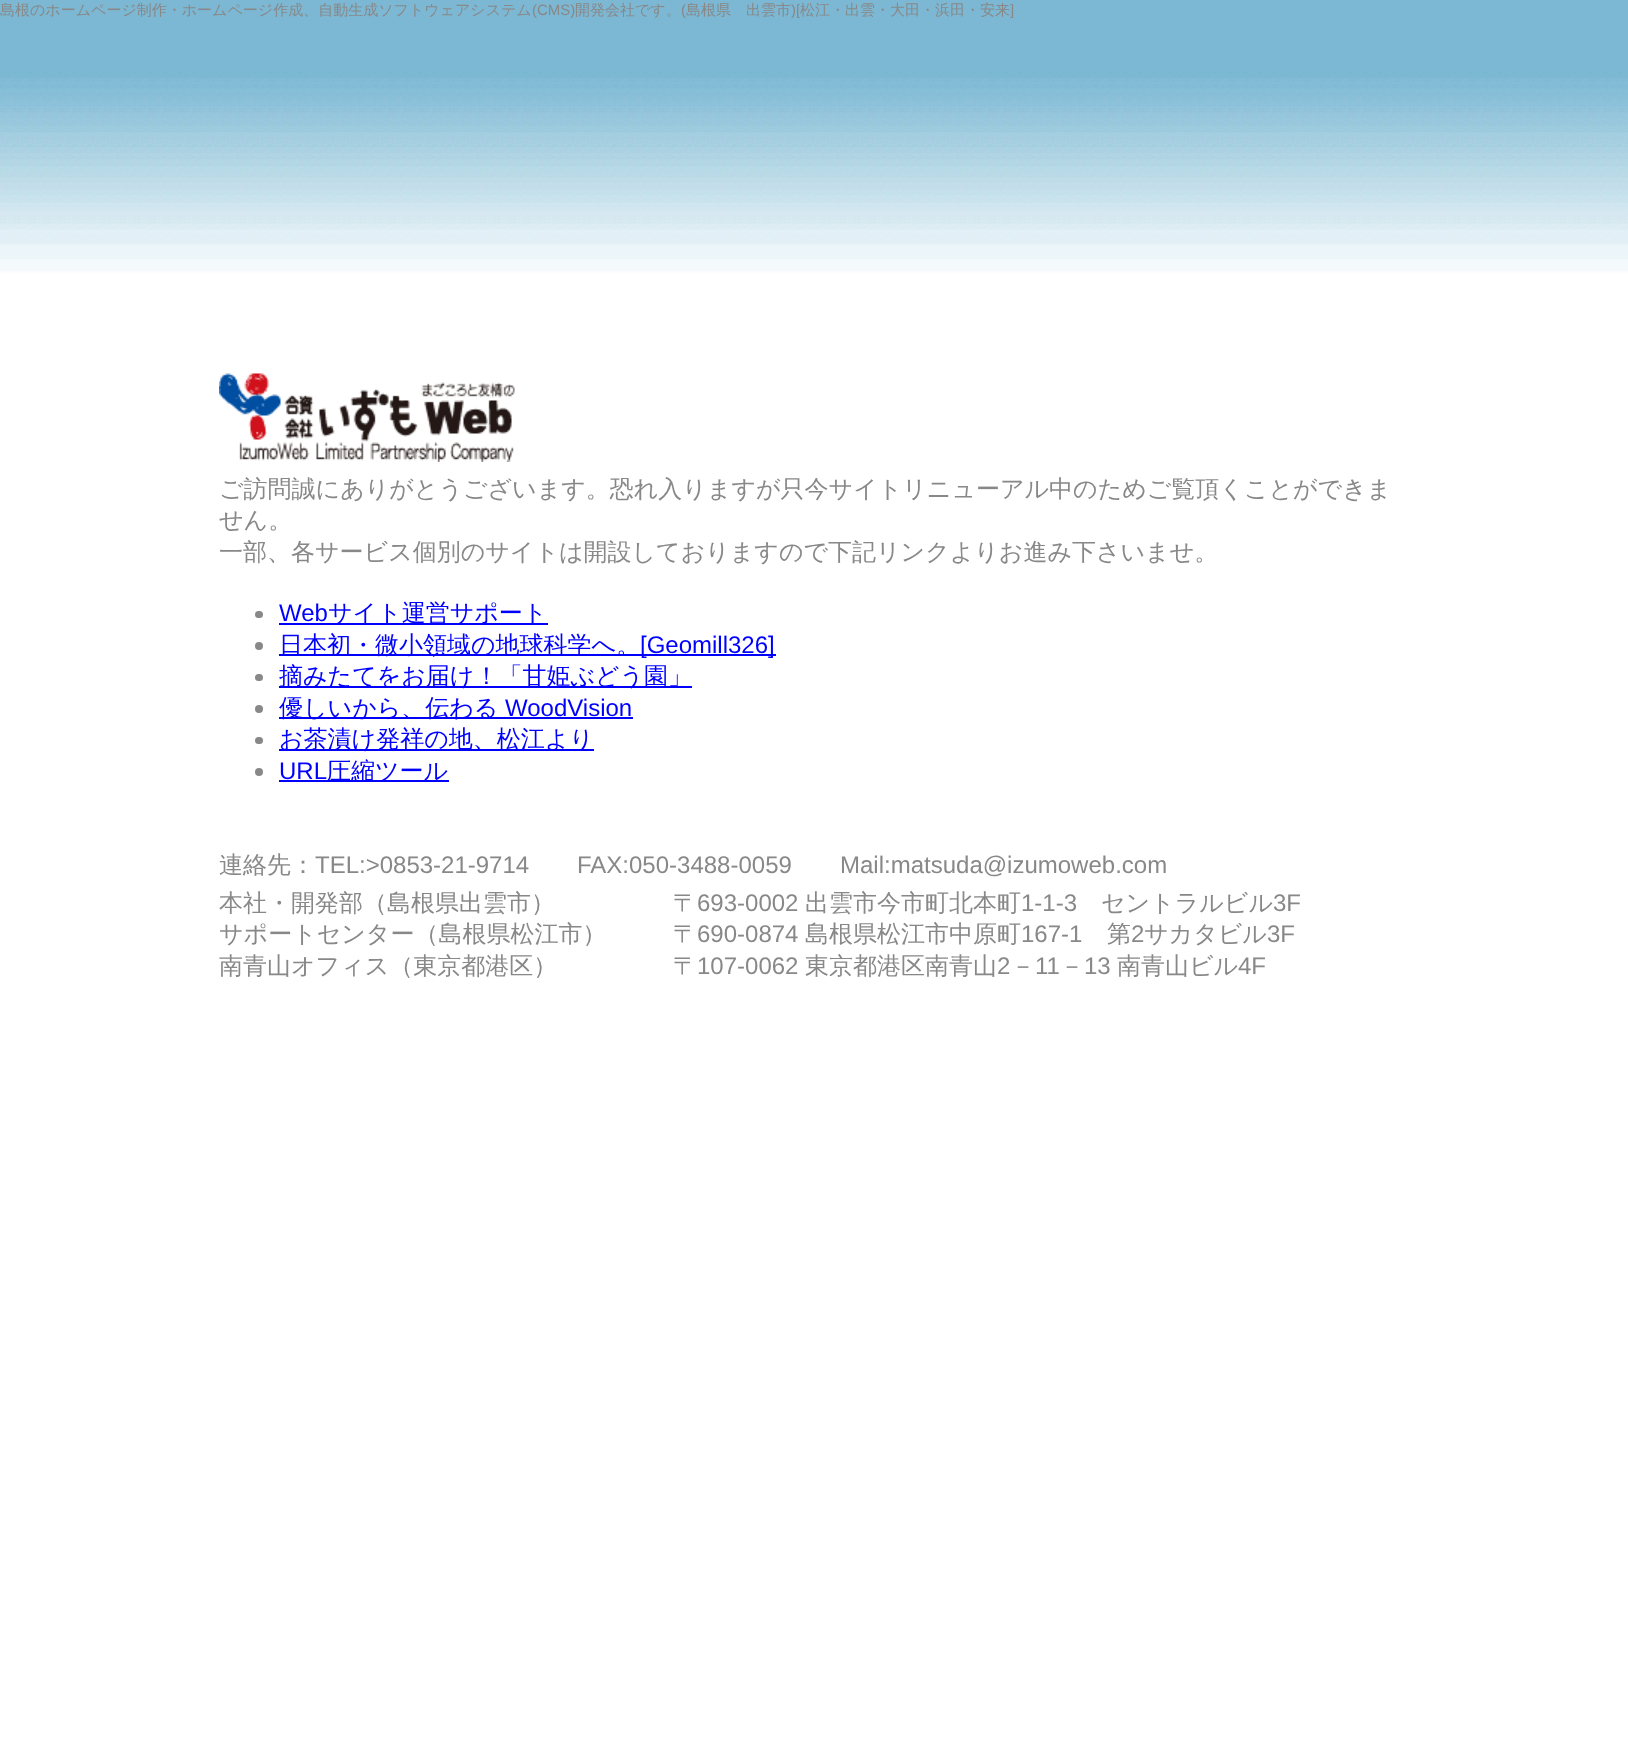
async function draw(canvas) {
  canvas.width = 1628;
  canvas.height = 1745;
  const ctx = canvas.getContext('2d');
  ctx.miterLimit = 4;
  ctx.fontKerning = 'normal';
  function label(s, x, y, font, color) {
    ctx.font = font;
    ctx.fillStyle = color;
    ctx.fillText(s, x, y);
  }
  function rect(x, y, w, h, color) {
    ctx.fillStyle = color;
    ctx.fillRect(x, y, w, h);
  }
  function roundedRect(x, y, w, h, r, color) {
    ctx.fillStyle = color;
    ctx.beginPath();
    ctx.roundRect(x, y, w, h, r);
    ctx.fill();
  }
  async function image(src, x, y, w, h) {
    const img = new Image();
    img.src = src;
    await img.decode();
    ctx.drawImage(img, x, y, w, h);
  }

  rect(0, 0, 1628, 1745, '#fff');
  await image('assets/img1.png', 0, 0, 1628, 273);
  label('島根のホームページ制作・ホームページ作成、自動生成ソフトウェアシステム', 0, 15, '500 15px WenQuanYi Zen Hei', '#888');
  label('(CMS)', 532, 15, '15px Liberation Sans', '#888');
  label('開発会社です。', 575, 15, '500 15px WenQuanYi Zen Hei', '#888');
  label('(', 681, 15, '15px Liberation Sans', '#888');
  label('島根県　出雲市', 686, 15, '500 15px WenQuanYi Zen Hei', '#888');
  label(')[', 791, 15, '15px Liberation Sans', '#888');
  label('松江・出雲・大田・浜田・安来', 800, 15, '500 15px WenQuanYi Zen Hei', '#888');
  label(']', 1010, 15, '15px Liberation Sans', '#888');
  await image('assets/img2.png', 219, 373, 296, 89);
  label('ご訪問誠にありがとうございます。恐れ入りますが只今サイトリニューアル中のためご覧頂くことができま', 219, 497, '500 24px WenQuanYi Zen Hei', '#888');
  label('せん。', 219, 528, '500 24px WenQuanYi Zen Hei', '#888');
  label('一部、各サービス個別のサイトは開設しておりますので下記リンクよりお進み下さいませ。', 219, 560, '500 24px WenQuanYi Zen Hei', '#888');
  roundedRect(255, 611, 8, 7, 3.5, '#888');
  label('Web', 279, 621, '24px Liberation Sans', '#00f');
  rect(279, 623, 269, 2, '#00f');
  label('サイト運営サポート', 328, 621, '500 24px WenQuanYi Zen Hei', '#00f');
  ctx.fillStyle = '#888';
  ctx.beginPath();
  ctx.arc(259, 646, 4, 0, 2 * Math.PI);
  ctx.fill();
  rect(279, 654, 497, 2, '#00f');
  label('日本初・微小領域の地球科学へ。', 279, 653, '500 24px WenQuanYi Zen Hei', '#00f');
  label('[Geomill326]', 640, 653, '24px Liberation Sans', '#00f');
  roundedRect(255, 674, 8, 7, 3.5, '#888');
  rect(279, 686, 413, 2, '#00f');
  label('摘みたてをお届け！「甘姫ぶどう園」', 279, 684, '500 24px WenQuanYi Zen Hei', '#00f');
  ctx.fillStyle = '#888';
  ctx.beginPath();
  ctx.arc(259, 709, 4, 0, 2 * Math.PI);
  ctx.fill();
  rect(279, 717, 354, 2, '#00f');
  label('優しいから、伝わる', 279, 716, '500 24px WenQuanYi Zen Hei', '#00f');
  label('WoodVision', 505, 716, '24px Liberation Sans', '#00f');
  roundedRect(255, 737, 8, 7, 3.5, '#888');
  rect(279, 749, 315, 2, '#00f');
  label('お茶漬け発祥の地、松江より', 279, 747, '500 24px WenQuanYi Zen Hei', '#00f');
  ctx.fillStyle = '#888';
  ctx.beginPath();
  ctx.arc(259, 772, 4, 0, 2 * Math.PI);
  ctx.fill();
  label('URL', 279, 779, '24px Liberation Sans', '#00f');
  rect(279, 780, 170, 2, '#00f');
  label('圧縮ツール', 327, 779, '500 24px WenQuanYi Zen Hei', '#00f');
  label('連絡先：', 219, 873, '500 24px WenQuanYi Zen Hei', '#888');
  label('TEL:>0853-21-9714', 315, 873, '24px Liberation Sans', '#888');
  label('FAX:050-3488-0059', 577, 873, '24px Liberation Sans', '#888');
  label('Mail:matsuda@izumoweb.com', 840, 873, '24px Liberation Sans', '#888');
  label('本社・開発部（島根県出雲市）', 219, 911, '500 24px WenQuanYi Zen Hei', '#888');
  label('〒', 673, 911, '500 24px WenQuanYi Zen Hei', '#888');
  label('693-0002', 697, 911, '24px Liberation Sans', '#888');
  label('出雲市今市町北本町', 805, 911, '500 24px WenQuanYi Zen Hei', '#888');
  label('1-1-3', 1021, 911, '24px Liberation Sans', '#888');
  label('セントラルビル', 1101, 911, '500 24px WenQuanYi Zen Hei', '#888');
  label('3F', 1273, 911, '24px Liberation Sans', '#888');
  label('サポートセンター（島根県松江市）', 219, 942, '500 24px WenQuanYi Zen Hei', '#888');
  label('〒', 673, 942, '500 24px WenQuanYi Zen Hei', '#888');
  label('690-0874', 697, 942, '24px Liberation Sans', '#888');
  label('島根県松江市中原町', 805, 942, '500 24px WenQuanYi Zen Hei', '#888');
  label('167-1', 1021, 942, '24px Liberation Sans', '#888');
  label('第', 1107, 942, '500 24px WenQuanYi Zen Hei', '#888');
  label('2', 1131, 942, '24px Liberation Sans', '#888');
  label('サカタビル', 1144, 942, '500 24px WenQuanYi Zen Hei', '#888');
  label('3F', 1267, 942, '24px Liberation Sans', '#888');
  label('南青山オフィス（東京都港区）', 219, 974, '500 24px WenQuanYi Zen Hei', '#888');
  label('〒', 673, 974, '500 24px WenQuanYi Zen Hei', '#888');
  label('107-0062', 697, 974, '24px Liberation Sans', '#888');
  label('東京都港区南青山', 805, 974, '500 24px WenQuanYi Zen Hei', '#888');
  label('2', 997, 974, '24px Liberation Sans', '#888');
  label('－', 1011, 974, '500 24px WenQuanYi Zen Hei', '#888');
  label('11', 1035, 974, '24px Liberation Sans', '#888');
  label('－', 1060, 974, '500 24px WenQuanYi Zen Hei', '#888');
  label('13', 1084, 974, '24px Liberation Sans', '#888');
  label('南青山ビル', 1117, 974, '500 24px WenQuanYi Zen Hei', '#888');
  label('4F', 1238, 974, '24px Liberation Sans', '#888');
}

draw(document.querySelector('canvas'));
